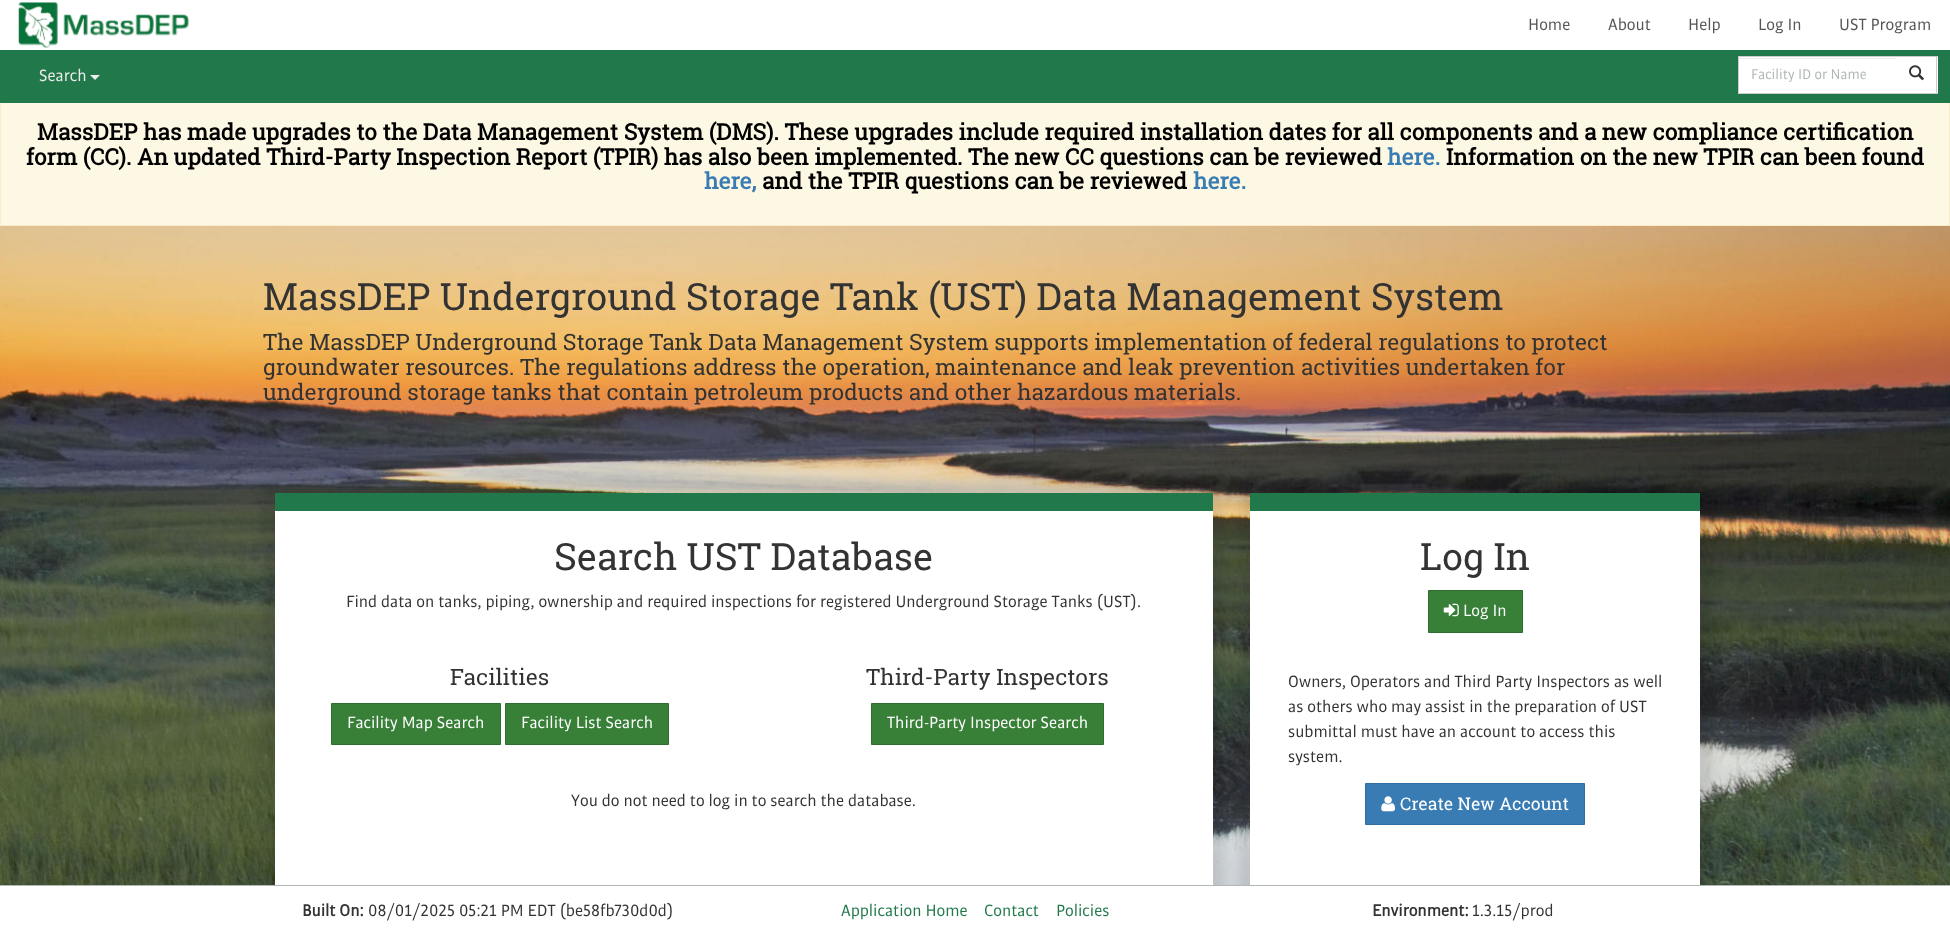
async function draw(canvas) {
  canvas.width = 1950;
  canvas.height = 934;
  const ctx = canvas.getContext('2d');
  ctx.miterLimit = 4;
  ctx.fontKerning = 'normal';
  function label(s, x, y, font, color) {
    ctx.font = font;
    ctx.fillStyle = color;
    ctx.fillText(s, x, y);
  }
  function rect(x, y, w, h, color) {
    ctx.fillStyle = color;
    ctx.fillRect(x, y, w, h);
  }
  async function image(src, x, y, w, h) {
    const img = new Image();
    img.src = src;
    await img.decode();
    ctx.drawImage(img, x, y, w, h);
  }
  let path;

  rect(0, 0, 1950, 934, '#fff');
  await image('assets/img1.png', 18, 2, 172, 46);
  label('Home', 1528, 30, '17.5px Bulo', '#555');
  label('About', 1608, 30, '17.5px Bulo', '#555');
  label('Help', 1688, 30, '17.5px Bulo', '#555');
  label('Log In', 1758, 30, '17.5px Bulo', '#555');
  label('UST Program', 1839, 30, '17.5px Bulo', '#555');
  rect(1, 103, 1948, 122, '#fcf8e3');
  ctx.strokeStyle = '#faebcc';
  ctx.strokeRect(0.5, 100.5, 1949, 125);
  rect(0, 50, 1950, 53, '#21784b');
  label('Search', 39, 81, '17.5px Bulo', '#eee');
  path = new Path2D('M90 75H100L95 80Z');
  ctx.fill(path);
  rect(1739, 57, 157, 36, '#fff');
  rect(1739, 58, 159, 1, '#ececec');
  ctx.strokeStyle = '#ccc';
  ctx.strokeRect(1738.5, 56.5, 160, 37);
  label('Facility ID or Name', 1751, 79, '15px Bulo', '#b1b7b7');
  rect(1896, 57, 42, 36, '#fff');
  rect(1896, 56, 42, 1, '#ccc');
  rect(1936, 56, 1, 38, '#ccc');
  rect(1896, 93, 42, 1, '#ccc');
  await image('assets/img2.png', 1909, 65, 15, 16);
  await image('assets/img3.png', 0, 226, 1950, 659);
  label('MassDEP has made upgrades to the Data Management System (DMS). These upgrades include required installation dates for all components and a new compliance certification', 37, 140, 'bold 22.5px Roboto Slab', '#000');
  label('form (CC). An updated Third-Party Inspection Report (TPIR) has also been implemented. The new CC questions can be reviewed', 26, 165, 'bold 22.5px Roboto Slab', '#000');
  label('here.', 1387, 165, 'bold 22.5px Roboto Slab', '#397bb3');
  label('Information on the new TPIR can been found', 1446, 165, 'bold 22.5px Roboto Slab', '#000');
  label('here,', 704, 189, 'bold 22.5px Roboto Slab', '#397bb3');
  label('and the TPIR questions can be reviewed', 762, 189, 'bold 22.5px Roboto Slab', '#000');
  label('here.', 1193, 189, 'bold 22.5px Roboto Slab', '#397bb3');
  label('MassDEP Underground Storage Tank (UST) Data Management System', 263, 310, '37.5px Roboto Slab', '#333');
  label('The MassDEP Underground Storage Tank Data Management System supports implementation of federal regulations to protect', 263, 350, '22.5px Roboto Slab', '#333');
  label('groundwater resources. The regulations address the operation, maintenance and leak prevention activities undertaken for', 263, 375, '22.5px Roboto Slab', '#333');
  label('underground storage tanks that contain petroleum products and other hazardous materials.', 263, 400, '22.5px Roboto Slab', '#333');
  ctx.save();
  ctx.beginPath();
  ctx.rect(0, 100, 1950, 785);
  ctx.clip();
  ctx.fillStyle = '#0000001a';
  ctx.filter = 'blur(6px)';
  ctx.beginPath();
  ctx.rect(263, 480, 962, 425);
  ctx.fill();
  ctx.filter = 'none';
  ctx.restore();
  rect(275, 511, 938, 374, '#fff');
  rect(275, 493, 938, 18, '#21784b');
  label('Search UST Database', 554, 570, '37.5px Roboto Slab', '#333');
  label('Find data on tanks, piping, ownership and required inspections for registered Underground Storage Tanks (UST).', 346, 607, '17.5px Bulo', '#333');
  label('Facilities', 450, 685, '22.5px Roboto Slab', '#333');
  ctx.fillStyle = '#387f38';
  ctx.beginPath();
  ctx.rect(331.5, 703.5, 169, 41);
  ctx.fill();
  ctx.strokeStyle = '#306d30';
  ctx.stroke();
  label('Facility Map Search', 347, 728, '17.5px Bulo', '#fff');
  ctx.fillStyle = '#387f38';
  ctx.beginPath();
  ctx.rect(505.5, 703.5, 163, 41);
  ctx.fill();
  ctx.stroke();
  label('Facility List Search', 521, 728, '17.5px Bulo', '#fff');
  label('Third-Party Inspectors', 866, 685, '22.5px Roboto Slab', '#333');
  ctx.fillStyle = '#387f38';
  ctx.beginPath();
  ctx.rect(871.5, 703.5, 232, 41);
  ctx.fill();
  ctx.stroke();
  label('Third-Party Inspector Search', 887, 728, '17.5px Bulo', '#fff');
  label('You do not need to log in to search the database.', 571, 806, '17.5px Bulo', '#333');
  ctx.save();
  ctx.beginPath();
  ctx.rect(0, 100, 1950, 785);
  ctx.clip();
  ctx.fillStyle = '#0000001a';
  ctx.filter = 'blur(6px)';
  ctx.beginPath();
  ctx.rect(1238, 480, 475, 425);
  ctx.fill();
  ctx.filter = 'none';
  ctx.restore();
  rect(1250, 511, 450, 374, '#fff');
  rect(1250, 493, 450, 18, '#21784b');
  label('Log In', 1420, 570, '37.5px Roboto Slab', '#333');
  ctx.fillStyle = '#387f38';
  ctx.beginPath();
  ctx.rect(1428.5, 590.5, 94, 42);
  ctx.fill();
  ctx.stroke();
  await image('assets/img4.png', 1443, 603, 16, 14);
  label('Log In', 1463, 616, '17.5px Bulo', '#fff');
  label('Owners, Operators and Third Party Inspectors as well', 1288, 687, '17.5px Bulo', '#333');
  label('as others who may assist in the preparation of UST', 1288, 712, '17.5px Bulo', '#333');
  label('submittal must have an account to access this', 1288, 737, '17.5px Bulo', '#333');
  label('system.', 1288, 762, '17.5px Bulo', '#333');
  ctx.fillStyle = '#397bb3';
  ctx.beginPath();
  ctx.rect(1365.5, 783.5, 219, 41);
  ctx.fill();
  ctx.strokeStyle = '#336ea0';
  ctx.stroke();
  await image('assets/img5.png', 1381, 796, 14, 16);
  label('Create New Account', 1400, 810, '17.5px Roboto Slab', '#fff');
  rect(0, 885, 1950, 1, '#b1b7b7');
  label('Built On:', 302, 916, 'bold 17.5px Bulo', '#333');
  label('08/01/2025 05:21 PM EDT (be58fb730d0d)', 368, 916, '17.5px Bulo', '#333');
  label('Application Home', 841, 916, '17.5px Bulo', '#21784b');
  label('Contact', 984, 916, '17.5px Bulo', '#21784b');
  label('Policies', 1056, 916, '17.5px Bulo', '#21784b');
  label('Environment:', 1372, 916, 'bold 17.5px Bulo', '#333');
  label('1.3.15/prod', 1472, 916, '17.5px Bulo', '#333');
}

draw(document.querySelector('canvas'));
